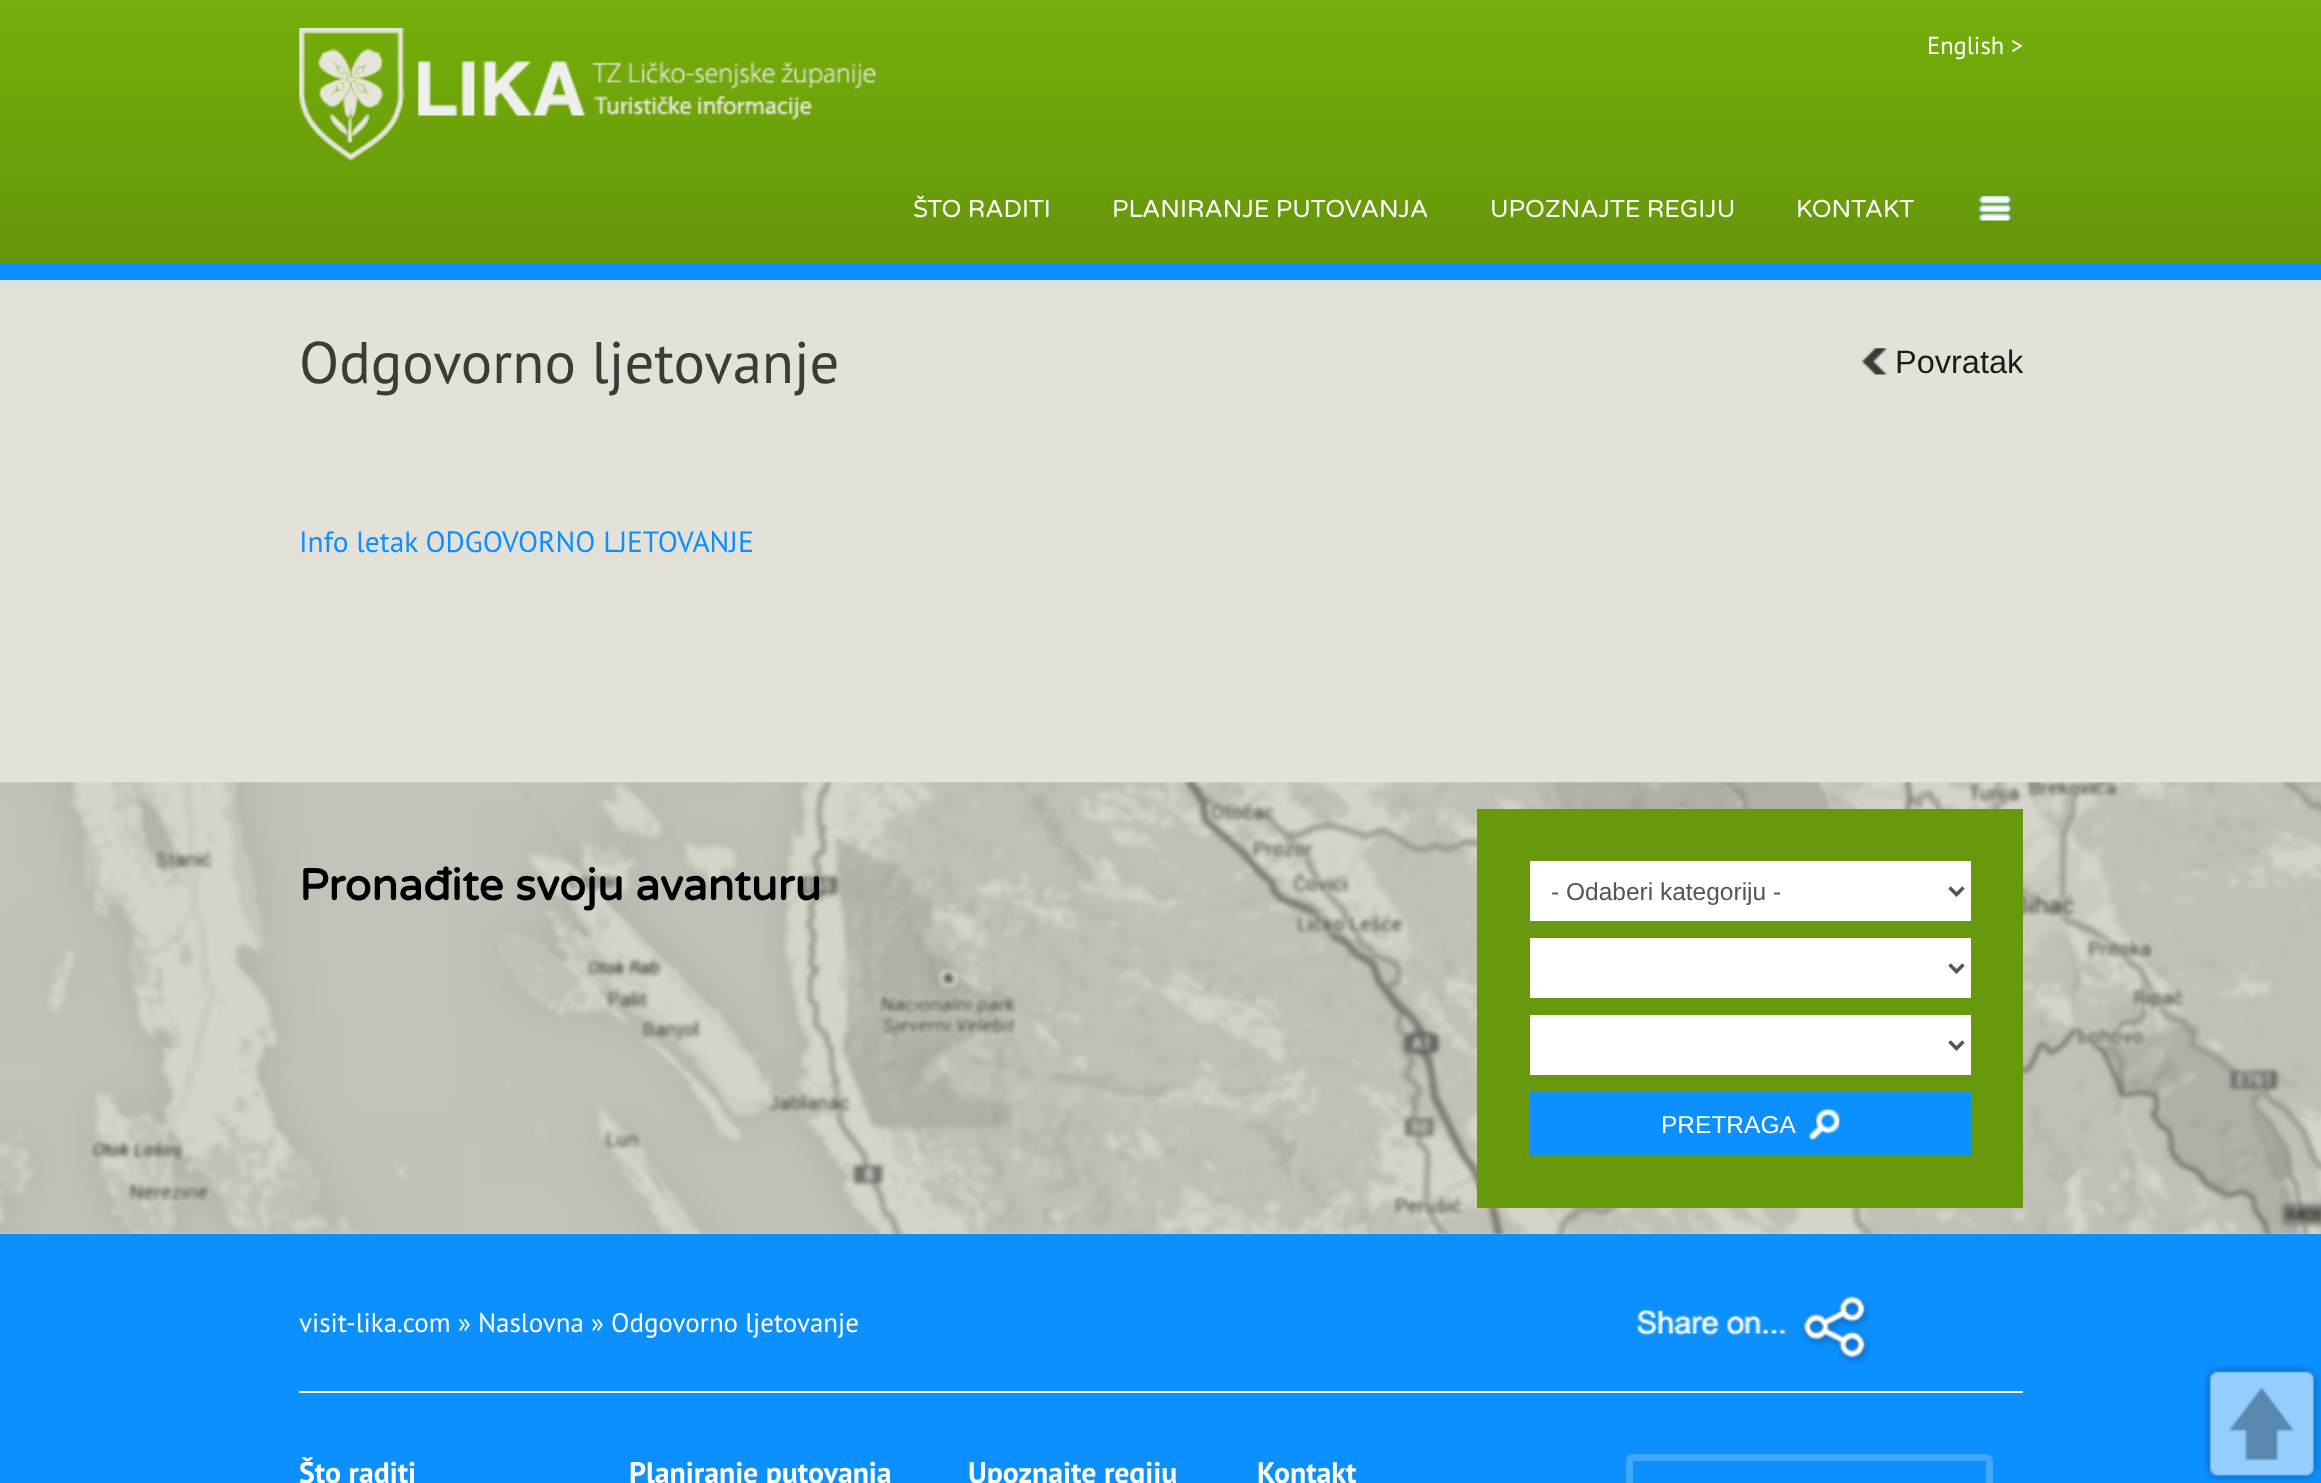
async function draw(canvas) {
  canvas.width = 2321;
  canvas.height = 1483;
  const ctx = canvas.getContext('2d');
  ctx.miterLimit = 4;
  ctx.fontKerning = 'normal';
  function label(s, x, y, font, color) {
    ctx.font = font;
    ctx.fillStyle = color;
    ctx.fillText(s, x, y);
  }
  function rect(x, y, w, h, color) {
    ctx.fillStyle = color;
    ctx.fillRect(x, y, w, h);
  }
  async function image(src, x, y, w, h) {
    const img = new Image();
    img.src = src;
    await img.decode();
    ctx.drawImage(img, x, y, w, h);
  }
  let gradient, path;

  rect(0, 0, 2321, 1483, '#e3e1d8');
  gradient = ctx.createLinearGradient(1161, 0, 1161, 263);
  gradient.addColorStop(0, '#76af0a');
  gradient.addColorStop(1, '#65950b');
  ctx.fillStyle = gradient;
  ctx.fillRect(0, 0, 2321, 263);
  await image('assets/img1.png', 299, 28, 578, 133);
  label('English >', 1927, 54, '24.5px PT Sans', '#fff');
  label('ŠTO RADITI', 913, 217, '24.5px Varela Round', '#fff');
  label('PLANIRANJE PUTOVANJA', 1112, 217, '24.5px Varela Round', '#fff');
  label('UPOZNAJTE REGIJU', 1490, 217, '24.5px Varela Round', '#fff');
  label('KONTAKT', 1796, 217, '24.5px Varela Round', '#fff');
  await image('assets/img2.png', 1979, 196, 32, 27);
  rect(0, 263, 2321, 17, '#0c90ff');
  label('Odgovorno ljetovanje', 299, 383, '58.75px PT Sans', '#3c3b37');
  await image('assets/img3.png', 1861, 348, 26, 27);
  label('Povratak', 1895, 373, '32.5px Liberation Sans', '#1b1b1b');
  label('Info letak ODGOVORNO LJETOVANJE', 299, 552, '29.4px PT Sans', '#0c90ff');
  await image('assets/img4.png', 0, 782, 2321, 452);
  label('Pronađite svoju avanturu', 299, 900, 'bold 44.1px Varela Round', '#000');
  rect(1477, 809, 546, 399, '#68990c');
  rect(1530, 861, 441, 60, '#fff');
  path = new Path2D('M1949.5 887.5L1956.5 894.5L1963.5 887.5');
  ctx.strokeStyle = '#555';
  ctx.lineWidth = 3.5;
  ctx.stroke(path);
  label('- Odaberi kategoriju -', 1551, 900, '24.5px Liberation Sans', '#555');
  rect(1530, 938, 441, 60, '#fff');
  path = new Path2D('M1949.5 964.5L1956.5 971.5L1963.5 964.5');
  ctx.stroke(path);
  rect(1530, 1015, 441, 60, '#fff');
  path = new Path2D('M1949.5 1041.5L1956.5 1048.5L1963.5 1041.5');
  ctx.stroke(path);
  rect(1530, 1092, 441, 63, '#0c90ff');
  label('PRETRAGA', 1661, 1133, '24.5px Liberation Sans', '#fff');
  await image('assets/img5.png', 1809, 1109, 31, 31);
  rect(0, 1234, 2321, 249, '#0c90ff');
  label('visit-lika.com » Naslovna » Odgovorno ljetovanje', 299, 1332, '26.95px PT Sans', '#fff');
  await image('assets/img6.png', 1636, 1296, 235, 69);
  rect(299, 1391, 1724, 2, '#fff');
  label('Što raditi', 299, 1483, 'bold 29.75px PT Sans', '#fff');
  label('Planiranje putovanja', 629, 1483, 'bold 29.75px PT Sans', '#fff');
  label('Upoznajte regiju', 968, 1483, 'bold 29.75px PT Sans', '#fff');
  label('Kontakt', 1257, 1483, 'bold 29.75px PT Sans', '#fff');
  ctx.beginPath();
  ctx.roundRect(1629.5, 1457.5, 360, 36, 3.5);
  ctx.strokeStyle = '#3fa7fe';
  ctx.lineWidth = 7;
  ctx.stroke();
  await image('assets/img7.png', 2203, 1365, 118, 117);
}

draw(document.querySelector('canvas'));
